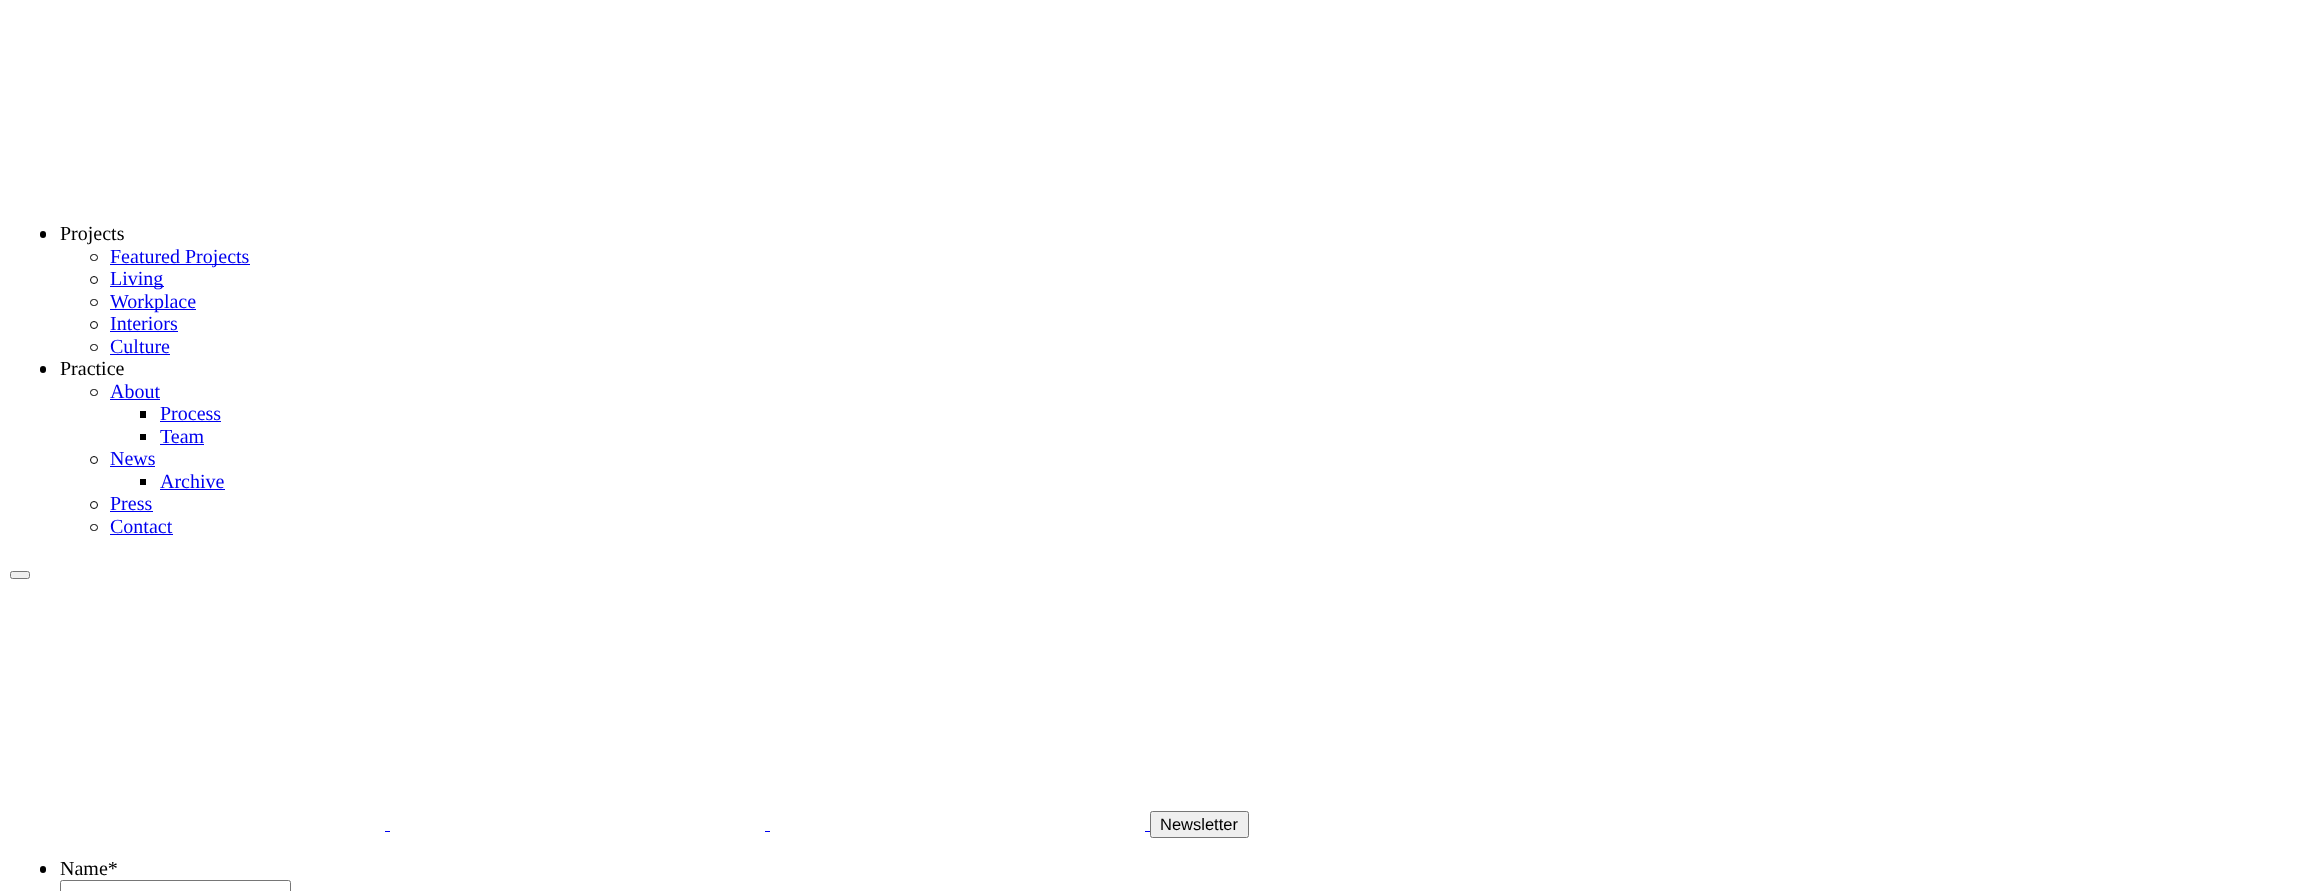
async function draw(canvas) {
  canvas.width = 2321;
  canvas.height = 891;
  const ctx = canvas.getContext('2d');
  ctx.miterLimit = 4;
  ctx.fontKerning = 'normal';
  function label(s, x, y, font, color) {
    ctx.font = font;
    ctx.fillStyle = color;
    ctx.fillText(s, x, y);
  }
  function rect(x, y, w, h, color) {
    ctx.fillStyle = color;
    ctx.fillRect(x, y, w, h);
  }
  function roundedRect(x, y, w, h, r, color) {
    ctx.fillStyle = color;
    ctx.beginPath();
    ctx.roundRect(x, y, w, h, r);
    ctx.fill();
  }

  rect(0, 0, 2321, 891, '#fff');
  roundedRect(40, 231, 6, 7, 3, '#000');
  label('Projects', 60, 240, '20px Liberation Serif', '#000');
  ctx.beginPath();
  ctx.roundRect(90.5, 254.5, 7, 6, 3);
  ctx.strokeStyle = '#000';
  ctx.stroke();
  rect(110, 264, 140, 1, '#00e');
  label('Featured Projects', 110, 263, '20px Liberation Serif', '#00e');
  ctx.beginPath();
  ctx.arc(94, 280, 3.5, 0, 2 * Math.PI);
  ctx.stroke();
  rect(110, 286, 54, 1, '#00e');
  label('Living', 110, 285, '20px Liberation Serif', '#00e');
  ctx.beginPath();
  ctx.roundRect(90.5, 299.5, 7, 6, 3);
  ctx.stroke();
  rect(110, 309, 86, 1, '#00e');
  label('Workplace', 110, 308, '20px Liberation Serif', '#00e');
  ctx.beginPath();
  ctx.arc(94, 325, 3.5, 0, 2 * Math.PI);
  ctx.stroke();
  label('Interiors', 110, 330, '20px Liberation Serif', '#00e');
  rect(110, 331, 68, 1, '#00e');
  ctx.beginPath();
  ctx.roundRect(90.5, 344.5, 7, 6, 3);
  ctx.stroke();
  label('Culture', 110, 353, '20px Liberation Serif', '#00e');
  rect(110, 354, 60, 1, '#00e');
  roundedRect(40, 366, 6, 7, 3, '#000');
  label('Practice', 60, 375, '20px Liberation Serif', '#000');
  ctx.beginPath();
  ctx.roundRect(90.5, 389.5, 7, 6, 3);
  ctx.stroke();
  label('About', 110, 398, '20px Liberation Serif', '#00e');
  rect(110, 399, 50, 1, '#00e');
  rect(140, 411, 6, 7, '#000');
  label('Process', 160, 420, '20px Liberation Serif', '#00e');
  rect(160, 421, 61, 1, '#00e');
  rect(140, 434, 6, 6, '#000');
  label('Team', 160, 443, '20px Liberation Serif', '#00e');
  rect(160, 444, 44, 1, '#00e');
  ctx.beginPath();
  ctx.arc(94, 460, 3.5, 0, 2 * Math.PI);
  ctx.stroke();
  label('News', 110, 465, '20px Liberation Serif', '#00e');
  rect(110, 466, 45, 1, '#00e');
  rect(140, 479, 6, 6, '#000');
  label('Archive', 160, 488, '20px Liberation Serif', '#00e');
  rect(160, 489, 65, 1, '#00e');
  ctx.beginPath();
  ctx.arc(94, 505, 3.5, 0, 2 * Math.PI);
  ctx.stroke();
  label('Press', 110, 510, '20px Liberation Serif', '#00e');
  rect(110, 511, 43, 1, '#00e');
  ctx.beginPath();
  ctx.roundRect(90.5, 524.5, 7, 6, 3);
  ctx.stroke();
  label('Contact', 110, 533, '20px Liberation Serif', '#00e');
  rect(110, 534, 63, 1, '#00e');
  ctx.fillStyle = '#efefef';
  ctx.beginPath();
  ctx.roundRect(10.5, 571.5, 19, 7, 2);
  ctx.fill();
  ctx.strokeStyle = '#767676';
  ctx.stroke();
  ctx.beginPath();
  ctx.roundRect(1150.5, 811.5, 98, 26, 2);
  ctx.fill();
  ctx.stroke();
  label('Newsletter', 1160, 830, '16.5px Liberation Sans', '#000');
  rect(385, 831, 5, 1, '#00e');
  rect(765, 831, 5, 1, '#00e');
  rect(1145, 831, 5, 1, '#00e');
  roundedRect(40, 866, 6, 7, 3, '#000');
  label('Name*', 60, 875, '20px Liberation Serif', '#000');
  ctx.beginPath();
  ctx.roundRect(60.5, 880.5, 230, 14, 2);
  ctx.stroke();
}

draw(document.querySelector('canvas'));
